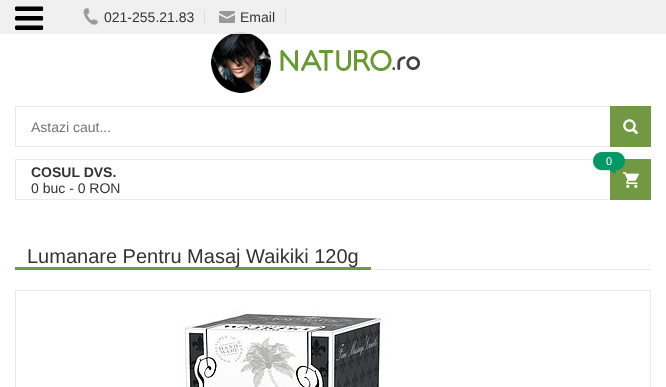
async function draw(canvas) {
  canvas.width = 666;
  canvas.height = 387;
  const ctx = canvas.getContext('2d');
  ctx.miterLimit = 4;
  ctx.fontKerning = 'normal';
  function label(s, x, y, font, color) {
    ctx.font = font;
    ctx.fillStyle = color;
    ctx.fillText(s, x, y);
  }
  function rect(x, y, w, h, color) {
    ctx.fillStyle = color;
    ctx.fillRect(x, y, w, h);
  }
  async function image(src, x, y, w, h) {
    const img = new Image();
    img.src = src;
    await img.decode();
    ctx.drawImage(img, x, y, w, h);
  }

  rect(0, 0, 666, 387, '#fff');
  await image('assets/img4.png', 211, 32, 209, 61);
  rect(0, 0, 666, 34, '#eeeeeee6');
  await image('assets/img1.png', 15, 6, 29, 24);
  rect(204, 9, 1, 16, '#e0e0e0');
  await image('assets/img2.png', 83, 8, 16, 17);
  label('021-255.21.83', 104, 22, '14px Liberation Sans', '#333');
  rect(285, 9, 1, 16, '#e0e0e0');
  await image('assets/img3.png', 219, 11, 16, 12);
  label('Email', 240, 22, '14px Liberation Sans', '#333');
  ctx.strokeStyle = '#eaeaea';
  ctx.strokeRect(15.5, 106.5, 635, 40);
  label('Astazi caut...', 31, 132, '14px Liberation Sans', '#757575');
  rect(610, 106, 41, 41, '#719842');
  await image('assets/img5.png', 623, 119, 15, 15);
  ctx.strokeRect(15.5, 159.5, 635, 40);
  label('COSUL DVS.', 31, 177, 'bold 14px Liberation Sans', '#333');
  rect(610, 159, 41, 41, '#719842');
  await image('assets/img7.png', 623, 172, 16, 16);
  await image('assets/img6.png', 593, 152, 32, 22);
  label('0', 606, 165, '11px Liberation Sans', '#fff');
  label('0 buc - 0 RON', 31, 193, '14px Liberation Sans', '#333');
  rect(371, 269, 280, 1, '#eaeaea');
  rect(15, 267, 356, 3, '#719842');
  label('Lumanare Pentru Masaj Waikiki 120g', 27, 263, '20px Liberation Sans', '#333');
  ctx.strokeRect(15.5, 290.5, 635, 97);
  await image('assets/img8.png', 178, 311, 208, 76);
}

draw(document.querySelector('canvas'));
